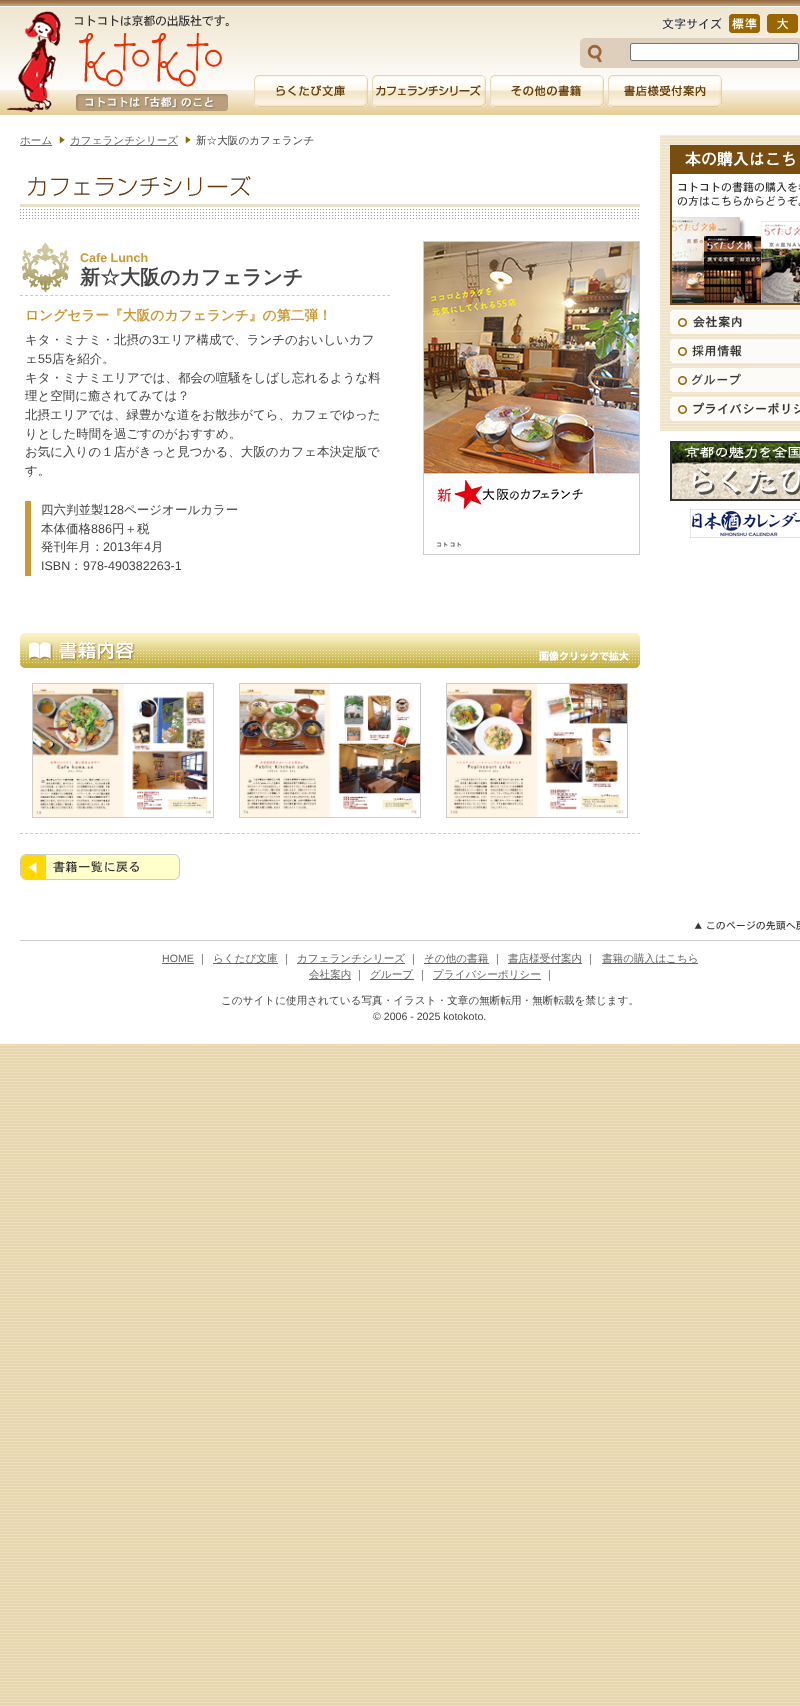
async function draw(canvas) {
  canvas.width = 800;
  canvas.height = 1706;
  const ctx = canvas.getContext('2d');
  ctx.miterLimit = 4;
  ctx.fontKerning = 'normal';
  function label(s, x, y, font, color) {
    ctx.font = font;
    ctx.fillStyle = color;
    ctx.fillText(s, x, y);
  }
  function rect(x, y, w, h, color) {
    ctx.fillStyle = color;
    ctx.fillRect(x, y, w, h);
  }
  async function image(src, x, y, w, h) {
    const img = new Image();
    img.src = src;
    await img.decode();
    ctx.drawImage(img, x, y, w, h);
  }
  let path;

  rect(0, 0, 800, 1706, '#fff');
  await image('assets/img1.png', 0, 1044, 800, 662);
  await image('assets/img2.png', 0, 0, 800, 115);
  await image('assets/img3.png', 6, 11, 223, 101);
  await image('assets/img4.png', 662, 18, 60, 12);
  await image('assets/img5.png', 729, 14, 31, 19);
  await image('assets/img6.png', 767, 14, 31, 19);
  await image('assets/img7.png', 580, 38, 220, 30);
  ctx.beginPath();
  ctx.roundRect(630.5, 43.5, 168, 17, 1.5);
  ctx.fill();
  ctx.strokeStyle = '#767676';
  ctx.stroke();
  await image('assets/img8.png', 254, 75, 114, 32);
  await image('assets/img9.png', 372, 75, 114, 32);
  await image('assets/img10.png', 490, 75, 114, 32);
  await image('assets/img11.png', 608, 75, 114, 32);
  rect(20, 145, 32, 1, '#666');
  label('ホーム', 20, 144, '500 10.6px WenQuanYi Zen Hei', '#666');
  await image('assets/img12.png', 59, 136, 6, 8);
  rect(70, 145, 108, 1, '#666');
  label('カフェランチシリーズ', 70, 144, '500 10.6px WenQuanYi Zen Hei', '#666');
  await image('assets/img12.png', 185, 136, 6, 8);
  label('新☆大阪のカフェランチ', 196, 144, '500 10.6px WenQuanYi Zen Hei', '#444');
  await image('assets/img13.png', 20, 176, 620, 43);
  await image('assets/img14.png', 22, 242, 55, 50);
  path = new Path2D('M20 295.5H390');
  ctx.strokeStyle = '#ccc';
  ctx.setLineDash([3, 2.03]);
  ctx.stroke(path);
  label('Cafe Lunch', 80, 262, 'bold 12.5px Liberation Sans', '#c93');
  label('新☆大阪のカフェランチ', 80, 284, 'bold 20px WenQuanYi Zen Hei', '#444');
  ctx.setLineDash([]);
  ctx.strokeRect(423.5, 241.5, 216, 313);
  await image('assets/img15.png', 424, 242, 215, 305);
  label('ロングセラー『大阪のカフェランチ』の第二弾！', 25, 320, 'bold 13.75px WenQuanYi Zen Hei', '#c93');
  label('キタ・ミナミ・北摂の', 25, 344, '500 12.5px WenQuanYi Zen Hei', '#444');
  label('3', 152, 344, '12.5px Liberation Sans', '#444');
  label('エリア構成で、ランチのおいしいカフ', 158, 344, '500 12.5px WenQuanYi Zen Hei', '#444');
  label('ェ', 25, 363, '500 12.5px WenQuanYi Zen Hei', '#444');
  label('55', 38, 363, '12.5px Liberation Sans', '#444');
  label('店を紹介。', 52, 363, '500 12.5px WenQuanYi Zen Hei', '#444');
  label('キタ・ミナミエリアでは、都会の喧騒をしばし忘れるような料', 25, 382, '500 12.5px WenQuanYi Zen Hei', '#444');
  label('理と空間に癒されてみては？', 25, 400, '500 12.5px WenQuanYi Zen Hei', '#444');
  label('北摂エリアでは、緑豊かな道をお散歩がてら、カフェでゆった', 25, 419, '500 12.5px WenQuanYi Zen Hei', '#444');
  label('りとした時間を過ごすのがおすすめ。', 25, 438, '500 12.5px WenQuanYi Zen Hei', '#444');
  label('お気に入りの１店がきっと見つかる、大阪のカフェ本決定版で', 25, 456, '500 12.5px WenQuanYi Zen Hei', '#444');
  label('す。', 25, 475, '500 12.5px WenQuanYi Zen Hei', '#444');
  rect(25, 501, 6, 75, '#c93');
  label('四六判並製', 41, 514, '500 12.5px WenQuanYi Zen Hei', '#444');
  label('128', 103, 514, '12.5px Liberation Sans', '#444');
  label('ページオールカラー', 124, 514, '500 12.5px WenQuanYi Zen Hei', '#444');
  label('本体価格', 41, 533, '500 12.5px WenQuanYi Zen Hei', '#444');
  label('886', 91, 533, '12.5px Liberation Sans', '#444');
  label('円＋税', 112, 533, '500 12.5px WenQuanYi Zen Hei', '#444');
  label('発刊年月：', 41, 551, '500 12.5px WenQuanYi Zen Hei', '#444');
  label('2013', 103, 551, '12.5px Liberation Sans', '#444');
  label('年', 131, 551, '500 12.5px WenQuanYi Zen Hei', '#444');
  label('4', 144, 551, '12.5px Liberation Sans', '#444');
  label('月', 151, 551, '500 12.5px WenQuanYi Zen Hei', '#444');
  label('ISBN', 41, 570, '12.5px Liberation Sans', '#444');
  label('：', 70, 570, '500 12.5px WenQuanYi Zen Hei', '#444');
  label('978-490382263-1', 83, 570, '12.5px Liberation Sans', '#444');
  await image('assets/img16.png', 20, 633, 620, 35);
  path = new Path2D('M20 833.5H227');
  ctx.setLineDash([3, 1.98]);
  ctx.stroke(path);
  ctx.setLineDash([]);
  ctx.strokeRect(32.5, 683.5, 181, 134);
  await image('assets/img17.png', 33, 684, 178, 133);
  path = new Path2D('M227 833.5H433');
  ctx.setLineDash([3, 1.95]);
  ctx.stroke(path);
  ctx.setLineDash([]);
  ctx.strokeRect(239.5, 683.5, 181, 134);
  await image('assets/img18.png', 240, 684, 180, 133);
  path = new Path2D('M433 833.5H640');
  ctx.setLineDash([3, 1.98]);
  ctx.stroke(path);
  ctx.setLineDash([]);
  ctx.strokeRect(446.5, 683.5, 181, 134);
  await image('assets/img19.png', 447, 684, 180, 133);
  await image('assets/img20.png', 20, 854, 160, 26);
  await image('assets/img21.png', 660, 135, 140, 296);
  await image('assets/img22.png', 670, 145, 130, 160);
  await image('assets/img23.png', 670, 310, 130, 24);
  await image('assets/img24.png', 670, 339, 130, 24);
  await image('assets/img25.png', 670, 368, 130, 24);
  await image('assets/img26.png', 670, 397, 130, 24);
  await image('assets/img27.png', 670, 441, 130, 60);
  await image('assets/img28.png', 690, 509, 110, 29);
  rect(20, 940, 780, 1, '#ccc');
  await image('assets/img29.png', 694, 921, 106, 9);
  label('HOME', 162, 962, '10.6px Liberation Sans', '#666');
  rect(162, 963, 32, 1, '#666');
  label('｜', 197, 962, '500 10.6px WenQuanYi Zen Hei', '#444');
  rect(213, 963, 65, 1, '#666');
  label('らくたび文庫', 213, 962, '500 10.6px WenQuanYi Zen Hei', '#666');
  label('｜', 281, 962, '500 10.6px WenQuanYi Zen Hei', '#444');
  rect(297, 963, 108, 1, '#666');
  label('カフェランチシリーズ', 297, 962, '500 10.6px WenQuanYi Zen Hei', '#666');
  label('｜', 408, 962, '500 10.6px WenQuanYi Zen Hei', '#444');
  rect(424, 963, 65, 1, '#666');
  label('その他の書籍', 424, 962, '500 10.6px WenQuanYi Zen Hei', '#666');
  label('｜', 492, 962, '500 10.6px WenQuanYi Zen Hei', '#444');
  rect(508, 963, 74, 1, '#666');
  label('書店様受付案内', 508, 962, '500 10.6px WenQuanYi Zen Hei', '#666');
  label('｜', 585, 962, '500 10.6px WenQuanYi Zen Hei', '#444');
  rect(602, 963, 96, 1, '#666');
  label('書籍の購入はこちら', 602, 962, '500 10.6px WenQuanYi Zen Hei', '#666');
  rect(309, 979, 42, 1, '#666');
  label('会社案内', 309, 978, '500 10.6px WenQuanYi Zen Hei', '#666');
  label('｜', 354, 978, '500 10.6px WenQuanYi Zen Hei', '#444');
  rect(370, 979, 44, 1, '#666');
  label('グループ', 370, 978, '500 10.6px WenQuanYi Zen Hei', '#666');
  label('｜', 417, 978, '500 10.6px WenQuanYi Zen Hei', '#444');
  rect(433, 979, 108, 1, '#666');
  label('プライバシーポリシー', 433, 978, '500 10.6px WenQuanYi Zen Hei', '#666');
  label('｜', 544, 978, '500 10.6px WenQuanYi Zen Hei', '#444');
  label('このサイトに使用されている写真・イラスト・文章の無断転用・無断転載を禁じます。', 221, 1004, '500 10.6px WenQuanYi Zen Hei', '#444');
  label('© 2006 - 2025 kotokoto.', 373, 1020, '10.6px Liberation Sans', '#444');
}

draw(document.querySelector('canvas'));
